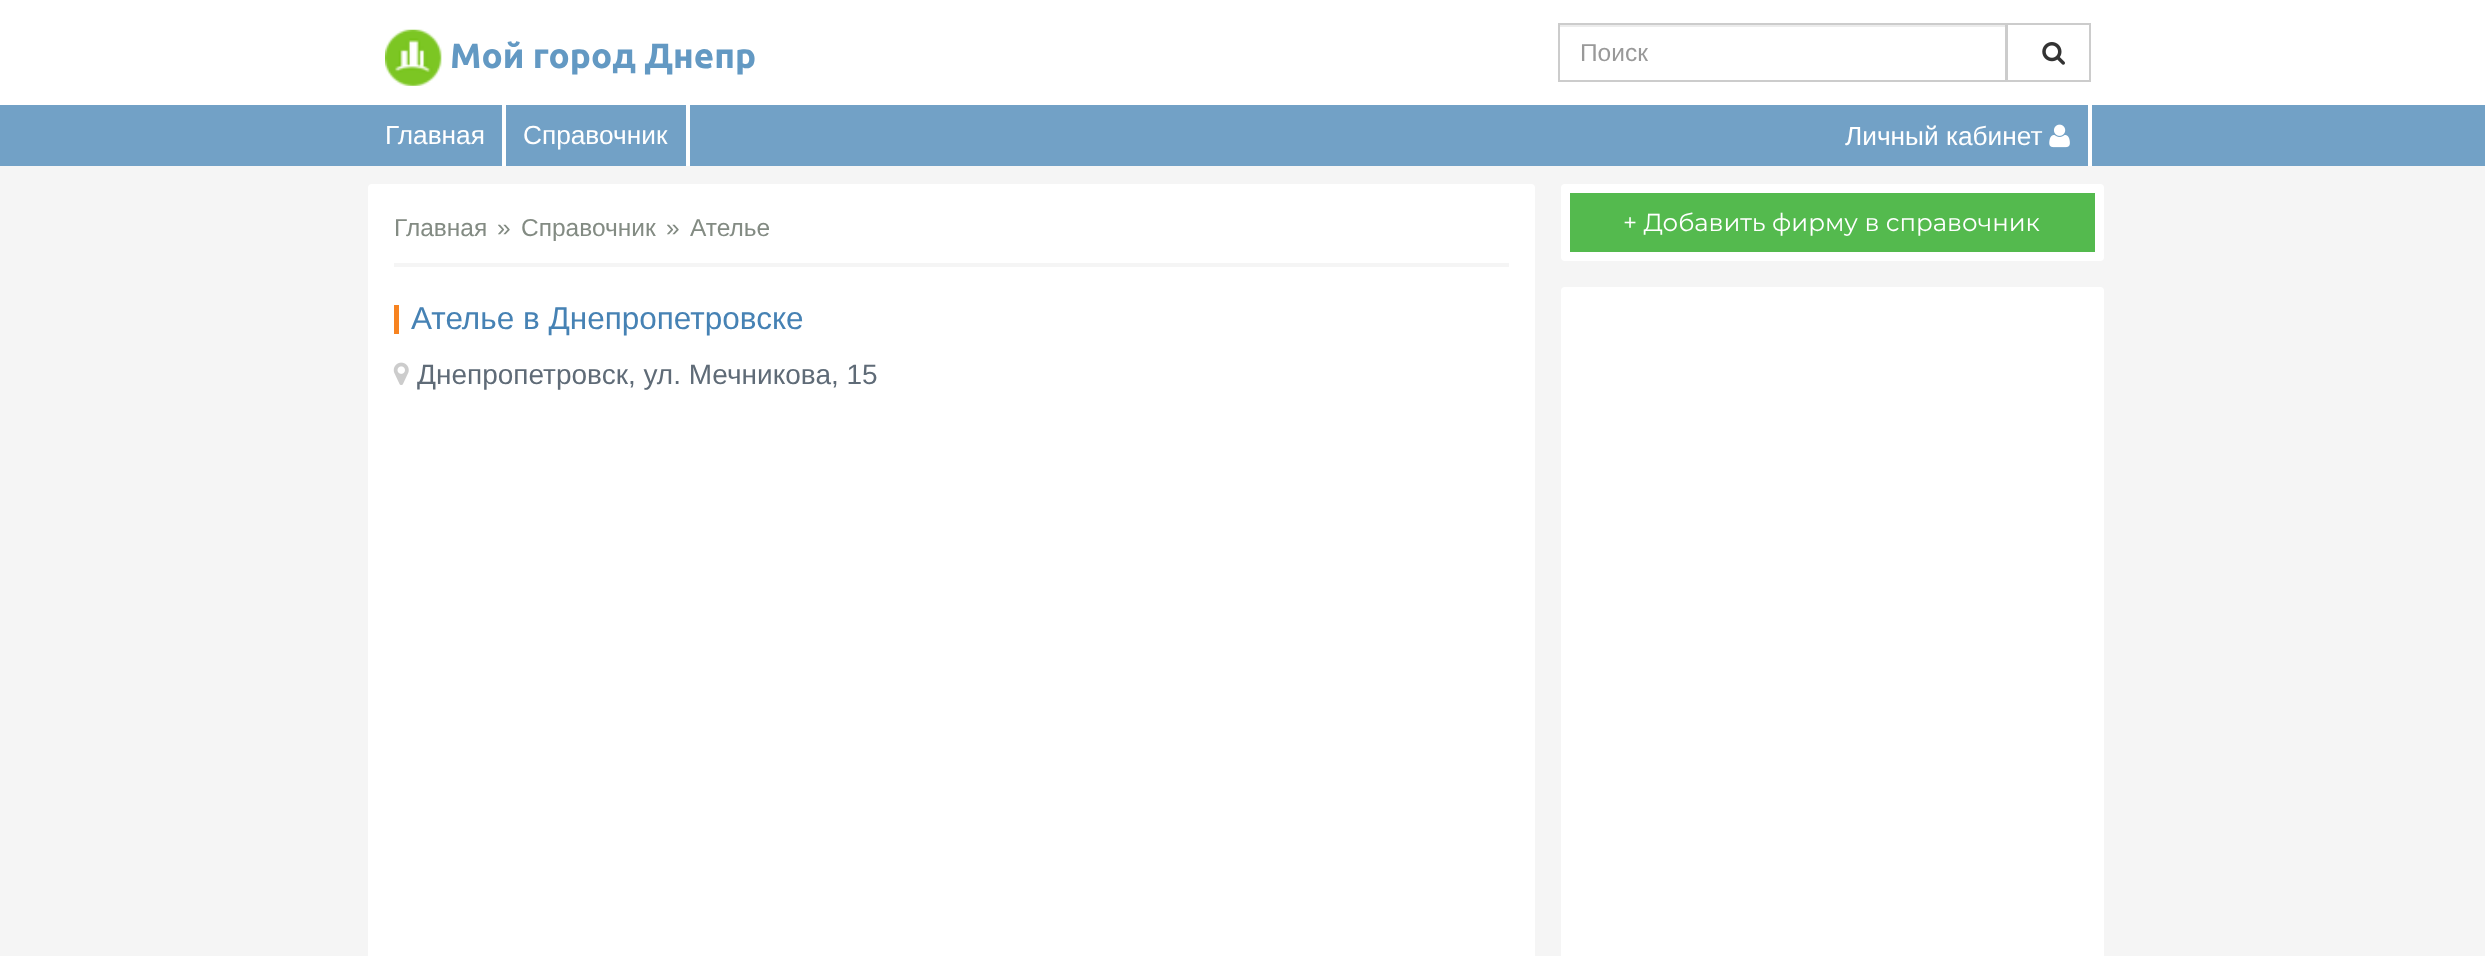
async function draw(canvas) {
  canvas.width = 2485;
  canvas.height = 956;
  const ctx = canvas.getContext('2d');
  ctx.miterLimit = 4;
  ctx.fontKerning = 'normal';
  function label(s, x, y, font, color) {
    ctx.font = font;
    ctx.fillStyle = color;
    ctx.fillText(s, x, y);
  }
  function rect(x, y, w, h, color) {
    ctx.fillStyle = color;
    ctx.fillRect(x, y, w, h);
  }
  function roundedRect(x, y, w, h, r, color) {
    ctx.fillStyle = color;
    ctx.beginPath();
    ctx.roundRect(x, y, w, h, r);
    ctx.fill();
  }
  async function image(src, x, y, w, h) {
    const img = new Image();
    img.src = src;
    await img.decode();
    ctx.drawImage(img, x, y, w, h);
  }

  rect(0, 0, 2485, 956, '#f5f5f5');
  rect(0, 0, 2485, 105, '#fff');
  await image('assets/img1.png', 385, 29, 57, 57);
  label('Мой город Днепр', 450, 68, 'bold 35px Ubuntu', '#6399c3');
  rect(1559, 25, 447, 2, '#ececec');
  ctx.strokeStyle = '#ccc';
  ctx.lineWidth = 2;
  ctx.strokeRect(2007, 24, 83, 57);
  ctx.strokeRect(1559, 24, 447, 57);
  label('Поиск', 1580, 61, '24.5px Liberation Sans', '#999');
  await image('assets/img2.png', 2042, 42, 23, 23);
  rect(0, 105, 2485, 61, '#72a1c6');
  rect(502, 105, 4, 61, '#fff');
  label('Главная', 385, 144, '26.25px Liberation Sans', '#fff');
  rect(686, 105, 4, 61, '#fff');
  label('Справочник', 523, 144, '26.25px Liberation Sans', '#fff');
  rect(2088, 105, 4, 61, '#fff');
  label('Личный кабинет', 1845, 145, '26.25px Liberation Sans', '#fff');
  await image('assets/img3.png', 2049, 124, 21, 24);
  roundedRect(368, 184, 1167, 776, 4, '#fff');
  label('Главная', 394, 236, '24.5px Liberation Sans', '#838b83');
  label('»', 497, 236, '24.5px Liberation Sans', '#838b83');
  label('Справочник', 521, 236, '24.5px Liberation Sans', '#838b83');
  label('»', 666, 236, '24.5px Liberation Sans', '#838b83');
  label('Ателье', 690, 236, '24.5px Liberation Sans', '#838b83');
  rect(394, 263, 1115, 4, '#f5f5f5');
  rect(394, 305, 5, 29, '#f78320');
  label('Ателье в Днепропетровске', 411, 329, '31.5px Liberation Sans', '#4682b4');
  await image('assets/img4.png', 393, 362, 16, 23);
  label('Днепропетровск, ул. Мечникова, 15', 417, 384, '28px Liberation Sans', '#5f6b77');
  roundedRect(1561, 184, 543, 77, 4, '#fff');
  rect(1570, 193, 525, 59, '#54ba4e');
  label('+ Добавить фирму в справочник', 1623, 231, '24.5px Montserrat', '#fff');
  roundedRect(1561, 287, 543, 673, 4, '#fff');
}

draw(document.querySelector('canvas'));
